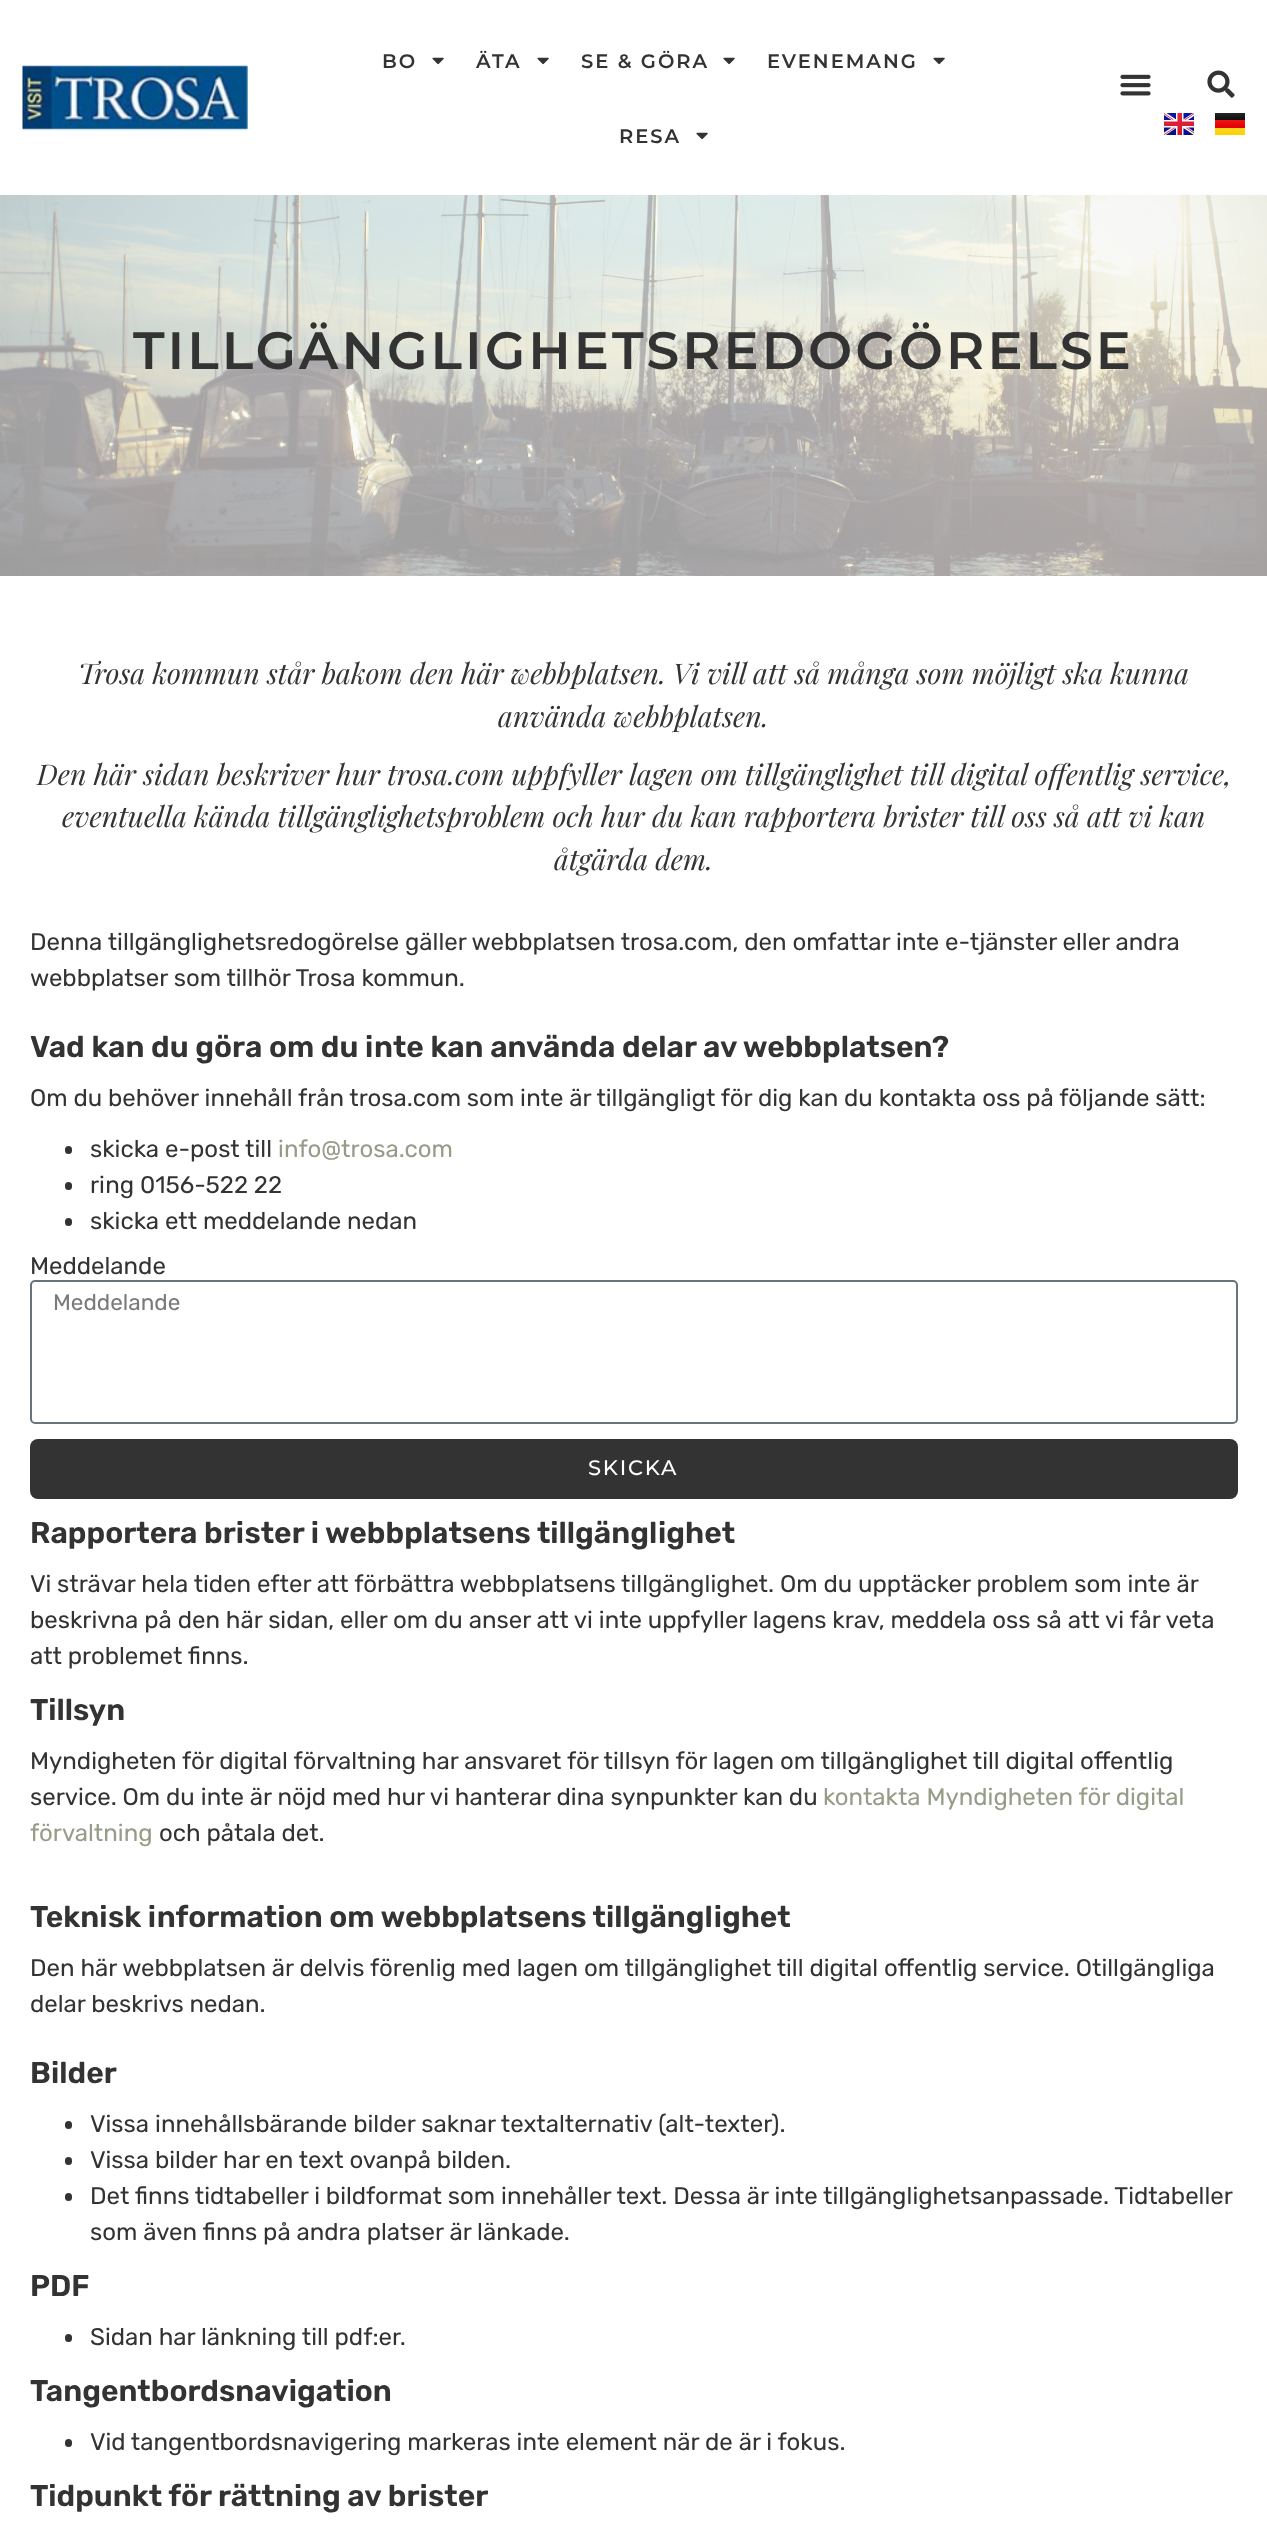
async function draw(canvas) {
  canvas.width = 1267;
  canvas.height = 2545;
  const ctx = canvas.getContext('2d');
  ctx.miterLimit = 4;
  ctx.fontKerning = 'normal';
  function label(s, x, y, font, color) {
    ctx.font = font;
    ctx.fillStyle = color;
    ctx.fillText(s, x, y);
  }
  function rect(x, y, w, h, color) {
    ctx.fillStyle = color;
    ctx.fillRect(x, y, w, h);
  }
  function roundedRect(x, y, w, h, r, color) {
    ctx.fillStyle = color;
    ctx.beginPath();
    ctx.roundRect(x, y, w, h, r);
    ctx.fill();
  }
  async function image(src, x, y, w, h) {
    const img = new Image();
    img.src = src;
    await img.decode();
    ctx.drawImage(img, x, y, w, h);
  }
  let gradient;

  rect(0, 0, 1267, 2545, '#fff');
  await image('assets/img1.png', 22, 65, 226, 66);
  ctx.letterSpacing = '2px';
  label('BO', 382, 68, '600 19.5px Montserrat', '#333');
  await image('assets/img2.png', 432, 57, 12, 8);
  label('ÄTA', 476, 68, '600 19.5px Montserrat', '#333');
  await image('assets/img2.png', 537, 57, 12, 8);
  label('SE & GÖRA', 581, 68, '600 19.5px Montserrat', '#333');
  await image('assets/img2.png', 723, 57, 12, 8);
  label('EVENEMANG', 767, 68, '600 19.5px Montserrat', '#333');
  await image('assets/img2.png', 933, 57, 12, 8);
  label('RESA', 619, 143, '600 19.5px Montserrat', '#333');
  await image('assets/img2.png', 696, 132, 12, 8);
  await image('assets/img3.png', 1120, 74, 31, 22);
  await image('assets/img4.png', 1207, 70, 28, 28);
  await image('assets/img5.png', 1164, 113, 30, 22);
  gradient = ctx.createLinearGradient(1231, 113, 1231, 120);
  gradient.addColorStop(0, '#262626');
  gradient.addColorStop(1, '#0d0d0d');
  ctx.fillStyle = gradient;
  ctx.fillRect(1215, 113, 30, 7);
  gradient = ctx.createLinearGradient(1231, 120, 1231, 128);
  gradient.addColorStop(0, '#f01515');
  gradient.addColorStop(1, '#de0000');
  ctx.fillStyle = gradient;
  ctx.fillRect(1215, 120, 30, 8);
  gradient = ctx.createLinearGradient(1231, 128, 1231, 135);
  gradient.addColorStop(0, '#ffd521');
  gradient.addColorStop(1, '#ffcf00');
  ctx.fillStyle = gradient;
  ctx.fillRect(1215, 128, 30, 7);
  await image('assets/img6.png', 0, 195, 1267, 381);
  ctx.letterSpacing = '3px';
  label('TILLGÄNGLIGHETSREDOGÖRELSE', 133, 369, '600 52.5px Montserrat', '#333');
  ctx.letterSpacing = '0px';
  label('Trosa kommun står bakom den här webbplatsen. Vi vill att så många som möjligt ska kunna', 78, 684, 'italic 28.5px Playfair Display', '#333');
  label('använda webbplatsen.', 498, 727, 'italic 28.5px Playfair Display', '#333');
  label('Den här sidan beskriver hur trosa.com uppfyller lagen om tillgänglighet till digital offentlig service,', 37, 785, 'italic 28.5px Playfair Display', '#333');
  label('eventuella kända tillgänglighetsproblem och hur du kan rapportera brister till oss så att vi kan', 62, 827, 'italic 28.5px Playfair Display', '#333');
  label('åtgärda dem.', 554, 870, 'italic 28.5px Playfair Display', '#333');
  label('Denna tillgänglighetsredogörelse gäller webbplatsen trosa.com, den omfattar inte e-tjänster eller andra', 30, 950, '24px Rubik', '#333');
  label('webbplatser som tillhör Trosa kommun.', 30, 986, '24px Rubik', '#333');
  label('Vad kan du göra om du inte kan använda delar av webbplatsen?', 30, 1057, '600 30px Rubik', '#333');
  label('Om du behöver innehåll från trosa.com som inte är tillgängligt för dig kan du kontakta oss på följande sätt:', 30, 1106, '24px Rubik', '#333');
  roundedRect(65, 1146, 7, 8, 3.5, '#333');
  label('skicka e-post till', 90, 1157, '24px Rubik', '#333');
  label('info@trosa.com', 278, 1157, '24px Rubik', '#969c88');
  roundedRect(65, 1182, 7, 8, 3.5, '#333');
  label('ring 0156-522 22', 90, 1193, '24px Rubik', '#333');
  roundedRect(65, 1218, 7, 8, 3.5, '#333');
  label('skicka ett meddelande nedan', 90, 1229, '24px Rubik', '#333');
  label('Meddelande', 30, 1274, '24px Rubik', '#333');
  ctx.beginPath();
  ctx.roundRect(31, 1281, 1206, 142, 4);
  ctx.strokeStyle = '#69727d';
  ctx.lineWidth = 2;
  ctx.stroke();
  label('Meddelande', 53, 1310, '22.5px Rubik', '#797a7c');
  roundedRect(30, 1439, 1208, 60, 8, '#333');
  ctx.letterSpacing = '1.75px';
  label('SKICKA', 588, 1475, '500 21px Montserrat', '#fff');
  ctx.letterSpacing = '0px';
  label('Rapportera brister i webbplatsens tillgänglighet', 30, 1543, '600 30px Rubik', '#333');
  label('Vi strävar hela tiden efter att förbättra webbplatsens tillgänglighet. Om du upptäcker problem som inte är', 30, 1592, '24px Rubik', '#333');
  label('beskrivna på den här sidan, eller om du anser att vi inte uppfyller lagens krav, meddela oss så att vi får veta', 30, 1628, '24px Rubik', '#333');
  label('att problemet finns.', 30, 1664, '24px Rubik', '#333');
  label('Tillsyn', 30, 1720, '600 30px Rubik', '#333');
  label('Myndigheten för digital förvaltning har ansvaret för tillsyn för lagen om tillgänglighet till digital offentlig', 30, 1769, '24px Rubik', '#333');
  label('service. Om du inte är nöjd med hur vi hanterar dina synpunkter kan du', 30, 1805, '24px Rubik', '#333');
  label('kontakta Myndigheten för digital', 823, 1805, '24px Rubik', '#969c88');
  label('förvaltning', 30, 1841, '24px Rubik', '#969c88');
  label('och påtala det.', 159, 1841, '24px Rubik', '#333');
  label('Teknisk information om webbplatsens tillgänglighet', 30, 1927, '600 30px Rubik', '#333');
  label('Den här webbplatsen är delvis förenlig med lagen om tillgänglighet till digital offentlig service. Otillgängliga', 30, 1976, '24px Rubik', '#333');
  label('delar beskrivs nedan.', 30, 2012, '24px Rubik', '#333');
  label('Bilder', 30, 2083, '600 30px Rubik', '#333');
  roundedRect(65, 2121, 7, 8, 3.5, '#333');
  label('Vissa innehållsbärande bilder saknar textalternativ (alt-texter).', 90, 2132, '24px Rubik', '#333');
  roundedRect(65, 2157, 7, 8, 3.5, '#333');
  label('Vissa bilder har en text ovanpå bilden.', 90, 2168, '24px Rubik', '#333');
  roundedRect(65, 2193, 7, 8, 3.5, '#333');
  label('Det finns tidtabeller i bildformat som innehåller text. Dessa är inte tillgänglighetsanpassade. Tidtabeller', 90, 2204, '24px Rubik', '#333');
  label('som även finns på andra platser är länkade.', 90, 2240, '24px Rubik', '#333');
  label('PDF', 30, 2296, '600 30px Rubik', '#333');
  roundedRect(65, 2334, 7, 8, 3.5, '#333');
  label('Sidan har länkning till pdf:er.', 90, 2345, '24px Rubik', '#333');
  label('Tangentbordsnavigation', 30, 2401, '600 30px Rubik', '#333');
  roundedRect(65, 2439, 7, 8, 3.5, '#333');
  label('Vid tangentbordsnavigering markeras inte element när de är i fokus.', 90, 2450, '24px Rubik', '#333');
  label('Tidpunkt för rättning av brister', 30, 2506, '600 30px Rubik', '#333');
}

draw(document.querySelector('canvas'));
